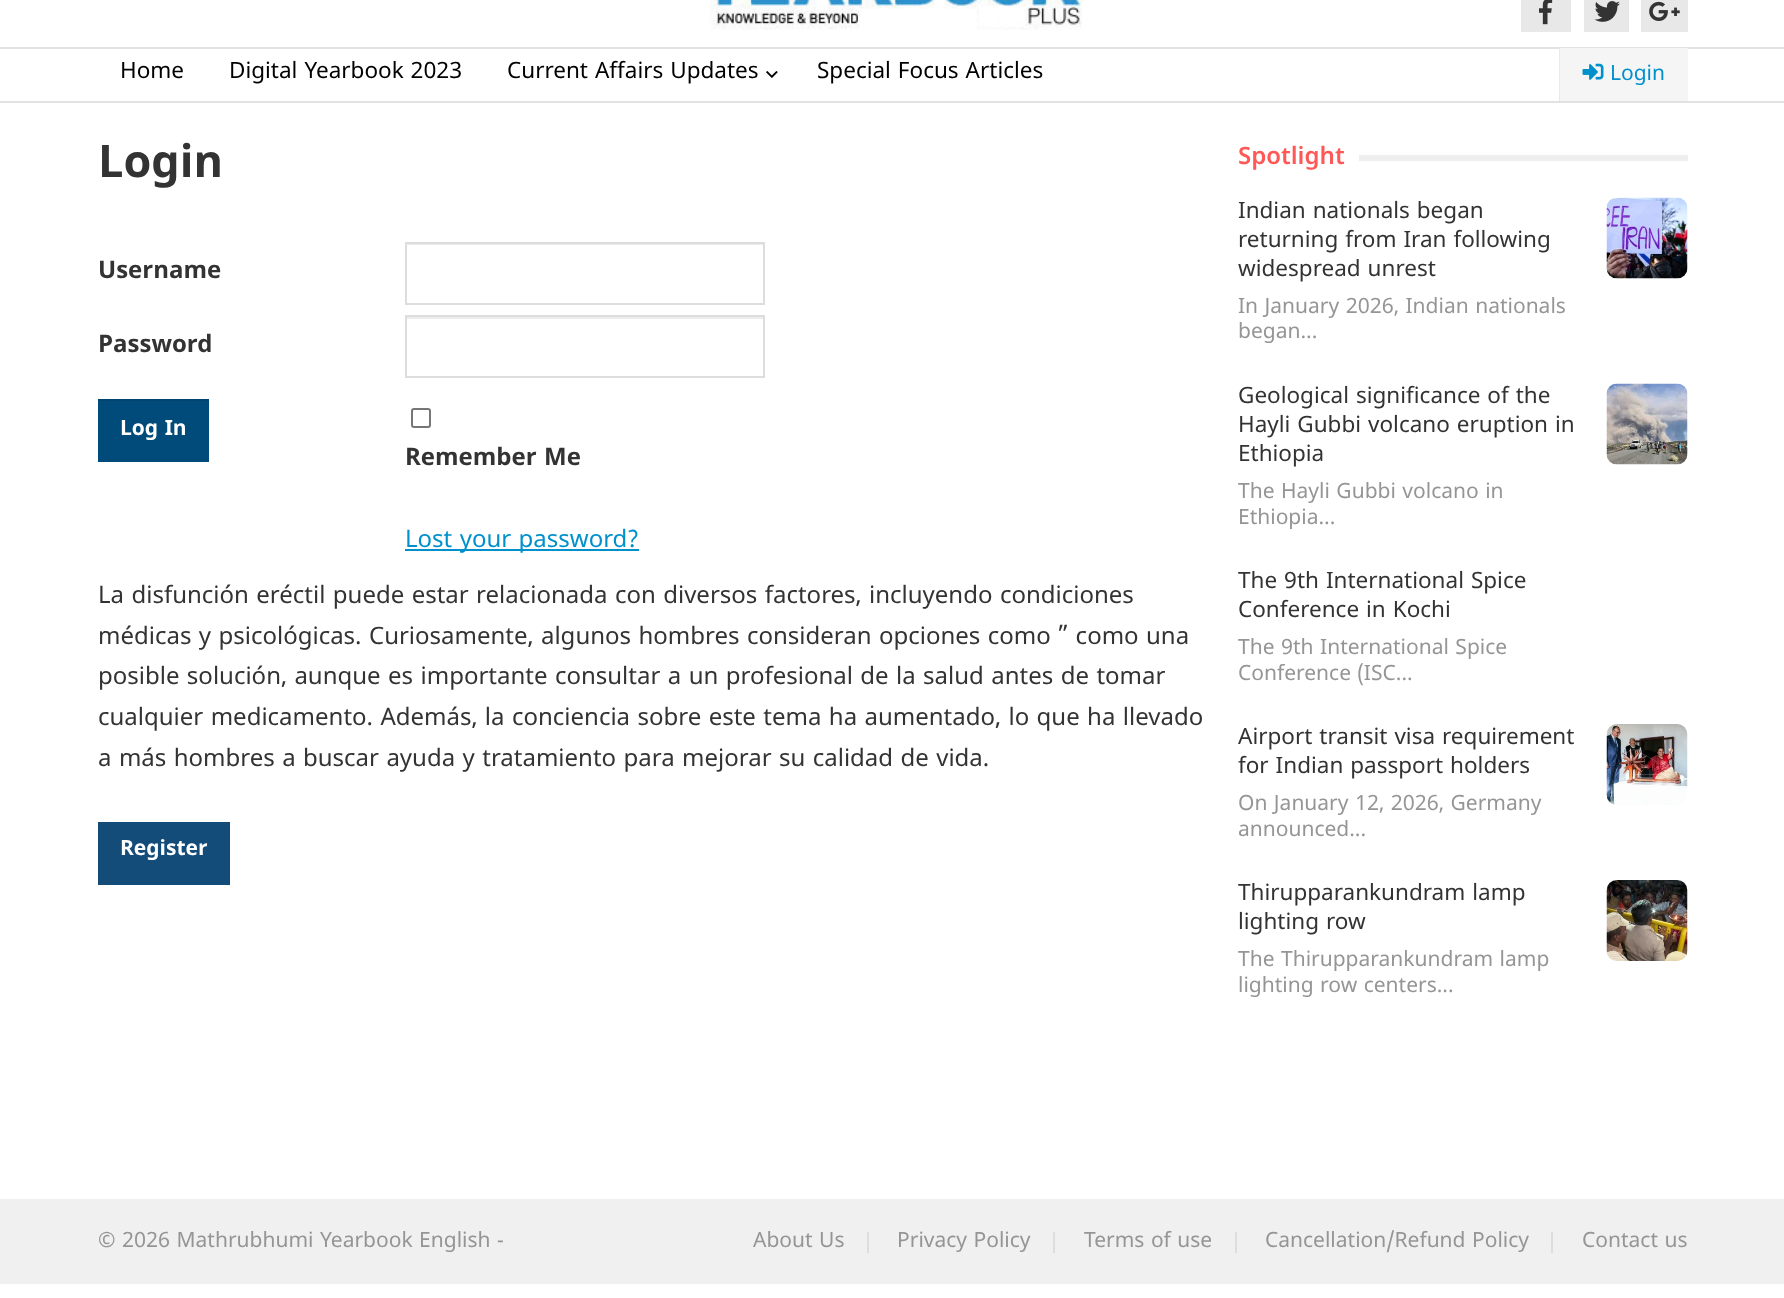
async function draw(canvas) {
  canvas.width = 1784;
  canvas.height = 1298;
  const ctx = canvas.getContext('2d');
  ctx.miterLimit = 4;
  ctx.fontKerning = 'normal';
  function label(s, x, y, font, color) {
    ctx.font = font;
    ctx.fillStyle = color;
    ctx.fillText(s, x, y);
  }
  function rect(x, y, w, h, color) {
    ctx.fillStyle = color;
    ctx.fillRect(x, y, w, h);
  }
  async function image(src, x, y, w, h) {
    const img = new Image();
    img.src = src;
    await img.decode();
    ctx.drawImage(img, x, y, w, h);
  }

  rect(0, 0, 1784, 1298, '#fff');
  await image('assets/img1.png', 710, 0, 373, 30);
  rect(1521, 0, 50, 32, '#e8e8e8');
  await image('assets/img2.png', 1539, 0, 14, 25);
  rect(1584, 0, 45, 32, '#e8e8e8');
  await image('assets/img3.png', 1594, 1, 26, 21);
  rect(1641, 0, 47, 32, '#e8e8e8');
  await image('assets/img4.png', 1649, 1, 31, 20);
  rect(0, 47, 1784, 2, '#e2e2e2');
  rect(0, 101, 1784, 2, '#e2e2e2');
  label('Home', 120, 78, '22.5px Noto Sans Malayalam', '#000');
  label('Digital Yearbook 2023', 229, 78, '22.5px Noto Sans Malayalam', '#000');
  label('Current Affairs Updates', 507, 78, '22.5px Noto Sans Malayalam', '#000');
  await image('assets/img5.png', 766, 71, 12, 7);
  label('Special Focus Articles', 817, 78, '22.5px Noto Sans Malayalam', '#000');
  rect(1559, 48, 1, 53, '#e9e9e9');
  rect(1560, 48, 128, 53, '#f5f5f5');
  await image('assets/img6.png', 1582, 63, 22, 17);
  label('Login', 1610, 80, '21px Noto Sans Malayalam', '#0091cd');
  label('Login', 98, 177, 'bold 45px Noto Sans Malayalam', '#333');
  label('Username', 98, 278, 'bold 24px Noto Sans Malayalam', '#333');
  rect(407, 244, 357, 1, '#ececec');
  ctx.strokeStyle = '#ddd';
  ctx.lineWidth = 2;
  ctx.strokeRect(406, 243, 358, 61);
  label('Password', 98, 352, 'bold 24px Noto Sans Malayalam', '#333');
  rect(407, 317, 357, 2, '#ececec');
  ctx.strokeRect(406, 316, 358, 61);
  rect(98, 401, 111, 61, '#004b79');
  rect(98, 399, 111, 2, '#004570');
  label('Log In', 120, 435, 'bold 21px Noto Sans Malayalam', '#fff');
  ctx.beginPath();
  ctx.roundRect(412, 409, 18, 18, 2);
  ctx.strokeStyle = '#767676';
  ctx.stroke();
  label('Remember Me', 405, 465, 'bold 24px Noto Sans Malayalam', '#333');
  rect(405, 549, 234, 2, '#0091cd');
  label('Lost your password?', 405, 547, '24px Noto Sans Malayalam', '#0091cd');
  label('La disfunción eréctil puede estar relacionada con diversos factores, incluyendo condiciones', 98, 603, '24px Noto Sans Malayalam', '#333');
  label('médicas y psicológicas. Curiosamente, algunos hombres consideran opciones como ” como una', 98, 644, '24px Noto Sans Malayalam', '#333');
  label('posible solución, aunque es importante consultar a un profesional de la salud antes de tomar', 98, 684, '24px Noto Sans Malayalam', '#333');
  label('cualquier medicamento. Además, la conciencia sobre este tema ha aumentado, lo que ha llevado', 98, 725, '24px Noto Sans Malayalam', '#333');
  label('a más hombres a buscar ayuda y tratamiento para mejorar su calidad de vida.', 98, 766, '24px Noto Sans Malayalam', '#333');
  rect(98, 822, 132, 63, '#134b79');
  label('Register', 120, 855, 'bold 21px Noto Sans Malayalam', '#fff');
  label('Spotlight', 1238, 164, '600 24px Noto Sans Malayalam', '#fe5957');
  rect(1359, 155, 329, 6, '#eee');
  label('Indian nationals began', 1238, 218, '22.5px Noto Sans Malayalam', '#333');
  label('returning from Iran following', 1238, 247, '22.5px Noto Sans Malayalam', '#333');
  label('widespread unrest', 1238, 276, '22.5px Noto Sans Malayalam', '#333');
  label('In January 2026, Indian nationals', 1238, 313, '21px Noto Sans Malayalam', '#969595');
  label('began...', 1238, 338, '21px Noto Sans Malayalam', '#969595');
  await image('assets/img7.png', 1606, 197, 82, 82);
  label('Geological significance of the', 1238, 403, '22.5px Noto Sans Malayalam', '#333');
  label('Hayli Gubbi volcano eruption in', 1238, 432, '22.5px Noto Sans Malayalam', '#333');
  label('Ethiopia', 1238, 461, '22.5px Noto Sans Malayalam', '#333');
  label('The Hayli Gubbi volcano in', 1238, 498, '21px Noto Sans Malayalam', '#969595');
  label('Ethiopia...', 1238, 524, '21px Noto Sans Malayalam', '#969595');
  await image('assets/img8.png', 1606, 383, 82, 82);
  label('The 9th International Spice', 1238, 588, '22.5px Noto Sans Malayalam', '#333');
  label('Conference in Kochi', 1238, 617, '22.5px Noto Sans Malayalam', '#333');
  label('The 9th International Spice', 1238, 654, '21px Noto Sans Malayalam', '#969595');
  label('Conference (ISC...', 1238, 680, '21px Noto Sans Malayalam', '#969595');
  label('Airport transit visa requirement', 1238, 744, '22.5px Noto Sans Malayalam', '#333');
  label('for Indian passport holders', 1238, 773, '22.5px Noto Sans Malayalam', '#333');
  label('On January 12, 2026, Germany', 1238, 810, '21px Noto Sans Malayalam', '#969595');
  label('announced...', 1238, 836, '21px Noto Sans Malayalam', '#969595');
  await image('assets/img9.png', 1606, 724, 82, 81);
  label('Thirupparankundram lamp', 1238, 900, '22.5px Noto Sans Malayalam', '#333');
  label('lighting row', 1238, 929, '22.5px Noto Sans Malayalam', '#333');
  label('The Thirupparankundram lamp', 1238, 966, '21px Noto Sans Malayalam', '#969595');
  label('lighting row centers...', 1238, 992, '21px Noto Sans Malayalam', '#969595');
  await image('assets/img10.png', 1606, 880, 82, 81);
  rect(0, 1199, 1784, 85, '#f0f0f0');
  label('© 2026 Mathrubhumi Yearbook English -', 98, 1247, '21px Noto Sans Malayalam', '#969595');
  rect(867, 1232, 2, 21, '#ddd');
  label('About Us', 753, 1247, '21px Noto Sans Malayalam', '#969595');
  rect(1053, 1232, 2, 21, '#ddd');
  label('Privacy Policy', 897, 1247, '21px Noto Sans Malayalam', '#969595');
  rect(1235, 1232, 2, 21, '#ddd');
  label('Terms of use', 1084, 1247, '21px Noto Sans Malayalam', '#969595');
  rect(1551, 1232, 2, 21, '#ddd');
  label('Cancellation/Refund Policy', 1265, 1247, '21px Noto Sans Malayalam', '#969595');
  label('Contact us', 1582, 1247, '21px Noto Sans Malayalam', '#969595');
}

draw(document.querySelector('canvas'));
